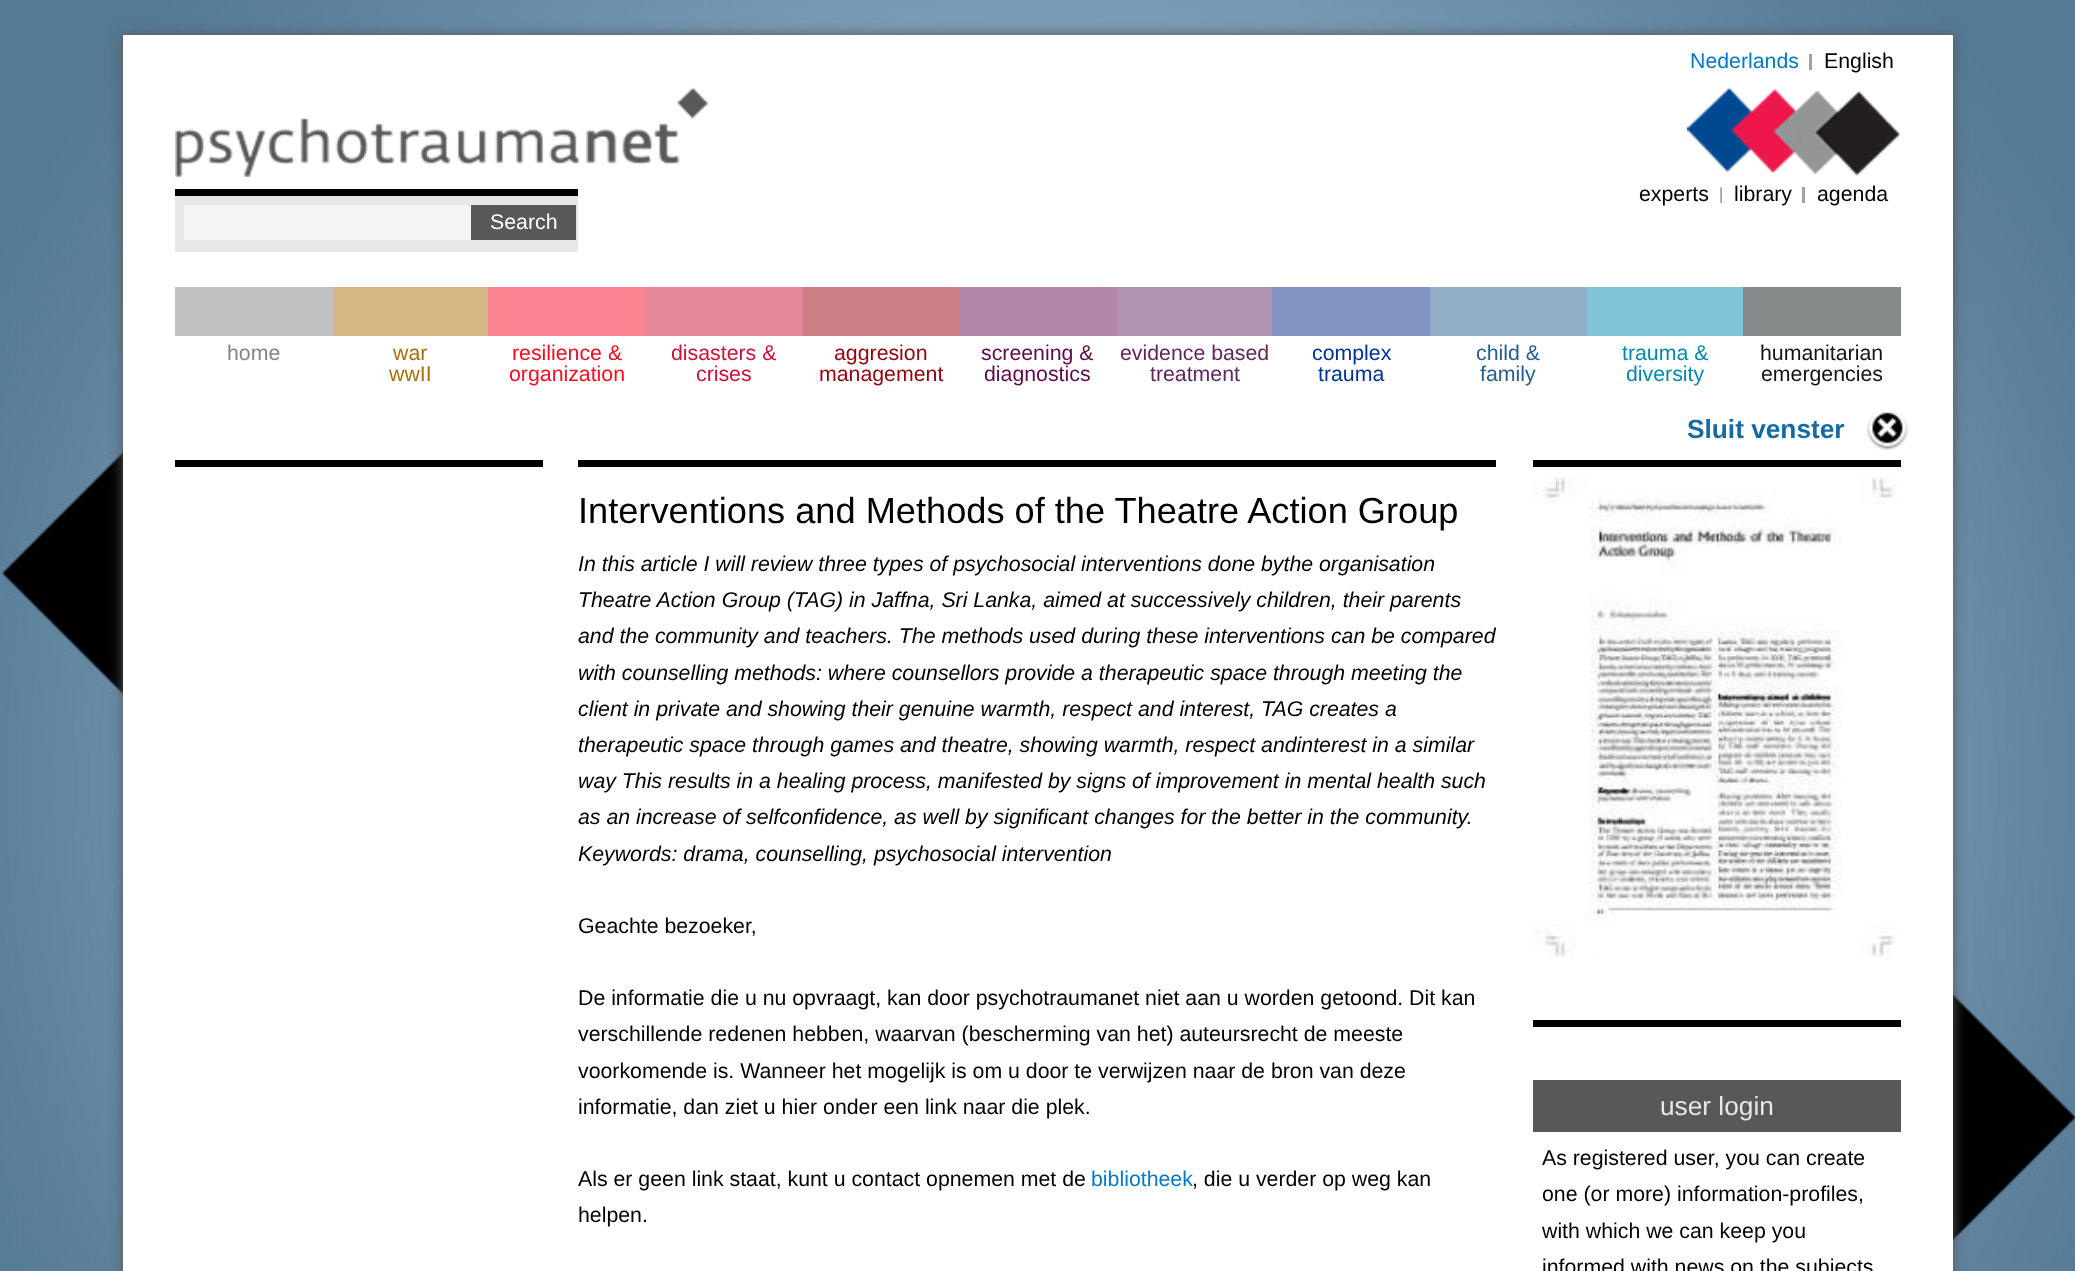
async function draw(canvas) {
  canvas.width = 2075;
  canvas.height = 1271;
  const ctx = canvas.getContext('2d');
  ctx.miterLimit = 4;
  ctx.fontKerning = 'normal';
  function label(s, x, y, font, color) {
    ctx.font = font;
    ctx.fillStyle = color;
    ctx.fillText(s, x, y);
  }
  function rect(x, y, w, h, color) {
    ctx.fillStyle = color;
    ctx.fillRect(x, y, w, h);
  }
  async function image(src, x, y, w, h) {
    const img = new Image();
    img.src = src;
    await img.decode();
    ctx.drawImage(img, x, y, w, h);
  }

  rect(0, 0, 2075, 1271, '#fff');
  await image('assets/img1.png', 0, 0, 2075, 1271);
  ctx.fillStyle = '#58585a';
  ctx.filter = 'blur(7px)';
  ctx.beginPath();
  ctx.rect(123, 35, 1830, 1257);
  ctx.fill();
  ctx.filter = 'none';
  rect(123, 35, 1830, 1236, '#fff');
  await image('assets/img2.png', 175, 87, 534, 90);
  rect(175, 196, 403, 56, '#e7e7e8');
  rect(175, 189, 403, 7, '#000');
  rect(184, 205, 287, 35, '#f4f4f5');
  rect(471, 205, 105, 35, '#58585a');
  label('Search', 490, 229, '21.3px Liberation Sans', '#fff');
  rect(1809, 54, 3, 16, '#a1a1a4');
  label('Nederlands', 1690, 68, '21.3px Liberation Sans', '#027ac6');
  label('English', 1824, 68, '21.3px Liberation Sans', '#000');
  await image('assets/img3.png', 1687, 87, 214, 89);
  await image('assets/img4.png', 1720, 187, 2, 16);
  label('experts', 1639, 201, '21.3px Liberation Sans', '#000');
  rect(1802, 187, 3, 16, '#a1a1a4');
  label('library', 1734, 201, '21.3px Liberation Sans', '#000');
  label('agenda', 1817, 201, '21.3px Liberation Sans', '#000');
  await image('assets/img5.png', 1867, 409, 41, 41);
  label('Sluit venster', 1687, 438, 'bold 26.25px Liberation Sans', '#156aa3');
  rect(175, 287, 158, 49, '#c1c1c1');
  label('home', 227, 360, '21.3px Liberation Sans', '#848484');
  rect(333, 287, 155, 49, '#d4b785');
  label('war', 393, 360, '21.3px Liberation Sans', '#a96f0b');
  label('wwII', 389, 381, '21.3px Liberation Sans', '#a96f0b');
  rect(488, 287, 158, 49, '#fa8590');
  label('resilience &', 512, 360, '21.3px Liberation Sans', '#f60b22');
  label('organization', 509, 381, '21.3px Liberation Sans', '#f60b22');
  rect(646, 287, 157, 49, '#e6889b');
  label('disasters &', 671, 360, '21.3px Liberation Sans', '#ce1238');
  label('crises', 696, 381, '21.3px Liberation Sans', '#ce1238');
  rect(803, 287, 156, 49, '#ca8086');
  label('aggresion', 834, 360, '21.3px Liberation Sans', '#95010e');
  label('management', 819, 381, '21.3px Liberation Sans', '#95010e');
  rect(959, 287, 158, 49, '#b085a5');
  label('screening &', 981, 360, '21.3px Liberation Sans', '#610b4b');
  label('diagnostics', 984, 381, '21.3px Liberation Sans', '#610b4b');
  rect(1117, 287, 155, 49, '#b093ae');
  label('evidence based', 1120, 360, '21.3px Liberation Sans', '#61285d');
  label('treatment', 1150, 381, '21.3px Liberation Sans', '#61285d');
  rect(1272, 287, 158, 49, '#8394c4');
  label('complex', 1312, 360, '21.3px Liberation Sans', '#039');
  label('trauma', 1318, 381, '21.3px Liberation Sans', '#039');
  rect(1430, 287, 157, 49, '#92aec7');
  label('child &', 1476, 360, '21.3px Liberation Sans', '#255d8f');
  label('family', 1480, 381, '21.3px Liberation Sans', '#255d8f');
  rect(1587, 287, 156, 49, '#81c4d8');
  label('trauma &', 1622, 360, '21.3px Liberation Sans', '#0489b1');
  label('diversity', 1626, 381, '21.3px Liberation Sans', '#0489b1');
  rect(1743, 287, 158, 49, '#878a8a');
  label('humanitarian', 1760, 360, '21.3px Liberation Sans', '#101516');
  label('emergencies', 1761, 381, '21.3px Liberation Sans', '#101516');
  rect(175, 460, 368, 7, '#000');
  rect(578, 460, 918, 7, '#000');
  label('Interventions and Methods of the Theatre Action Group', 578, 523, '36.2px Liberation Sans', '#000');
  label('In this article I will review three types of psychosocial interventions done bythe organisation', 578, 571, 'italic 21.3px Liberation Sans', '#000');
  label('Theatre Action Group (TAG) in Jaffna, Sri Lanka, aimed at successively children, their parents', 578, 607, 'italic 21.3px Liberation Sans', '#000');
  label('and the community and teachers. The methods used during these interventions can be compared', 578, 643, 'italic 21.3px Liberation Sans', '#000');
  label('with counselling methods: where counsellors provide a therapeutic space through meeting the', 578, 680, 'italic 21.3px Liberation Sans', '#000');
  label('client in private and showing their genuine warmth, respect and interest, TAG creates a', 578, 716, 'italic 21.3px Liberation Sans', '#000');
  label('therapeutic space through games and theatre, showing warmth, respect andinterest in a similar', 578, 752, 'italic 21.3px Liberation Sans', '#000');
  label('way This results in a healing process, manifested by signs of improvement in mental health such', 578, 788, 'italic 21.3px Liberation Sans', '#000');
  label('as an increase of selfconfidence, as well by significant changes for the better in the community.', 578, 824, 'italic 21.3px Liberation Sans', '#000');
  label('Keywords: drama, counselling, psychosocial intervention', 578, 861, 'italic 21.3px Liberation Sans', '#000');
  label('Geachte bezoeker,', 578, 933, '21.3px Liberation Sans', '#000');
  label('De informatie die u nu opvraagt, kan door psychotraumanet niet aan u worden getoond. Dit kan', 578, 1005, '21.3px Liberation Sans', '#000');
  label('verschillende redenen hebben, waarvan (bescherming van het) auteursrecht de meeste', 578, 1041, '21.3px Liberation Sans', '#000');
  label('voorkomende is. Wanneer het mogelijk is om u door te verwijzen naar de bron van deze', 578, 1078, '21.3px Liberation Sans', '#000');
  label('informatie, dan ziet u hier onder een link naar die plek.', 578, 1114, '21.3px Liberation Sans', '#000');
  label('Als er geen link staat, kunt u contact opnemen met de', 578, 1186, '21.3px Liberation Sans', '#000');
  label('bibliotheek', 1091, 1186, '21.3px Liberation Sans', '#027ac6');
  label(', die u verder op weg kan', 1192, 1186, '21.3px Liberation Sans', '#000');
  label('helpen.', 578, 1222, '21.3px Liberation Sans', '#000');
  rect(1533, 460, 368, 7, '#000');
  await image('assets/img6.png', 1533, 476, 364, 481);
  rect(1533, 1020, 368, 7, '#000');
  rect(1533, 1080, 368, 52, '#58585a');
  label('user login', 1660, 1115, '26.25px Liberation Sans', '#e7e7e8');
  label('As registered user, you can create', 1542, 1165, '21.3px Liberation Sans', '#000');
  label('one (or more) information-profiles,', 1542, 1201, '21.3px Liberation Sans', '#000');
  label('with which we can keep you', 1542, 1238, '21.3px Liberation Sans', '#000');
  label('informed with news on the subjects', 1542, 1274, '21.3px Liberation Sans', '#000');
}

draw(document.querySelector('canvas'));
